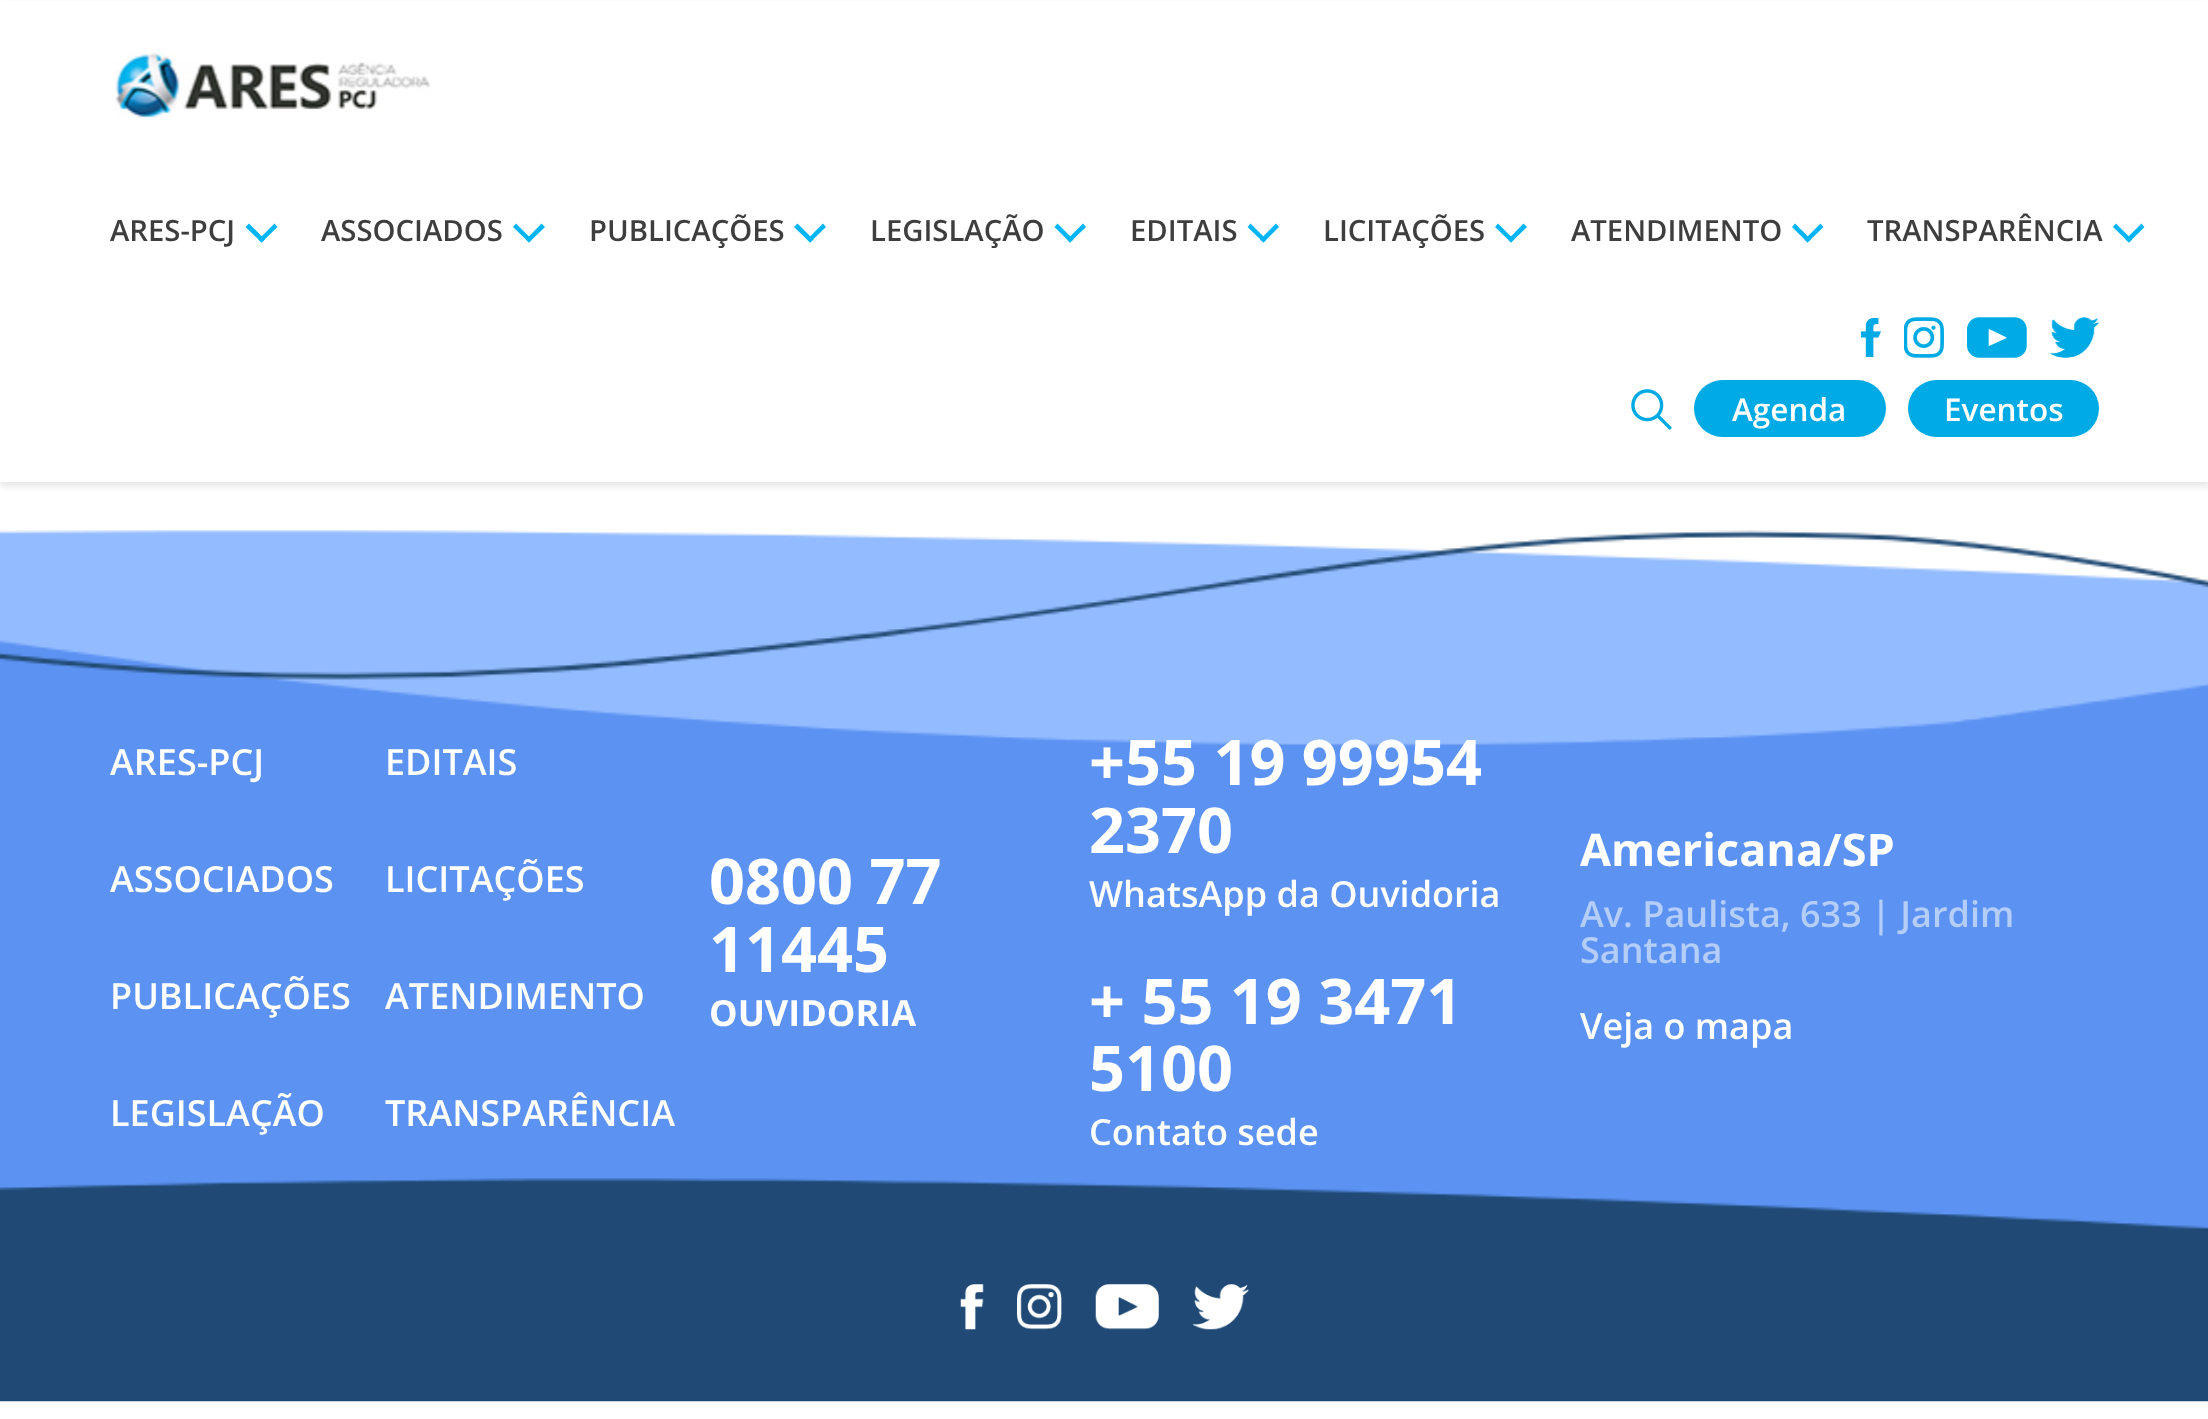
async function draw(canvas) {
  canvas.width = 2208;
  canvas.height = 1419;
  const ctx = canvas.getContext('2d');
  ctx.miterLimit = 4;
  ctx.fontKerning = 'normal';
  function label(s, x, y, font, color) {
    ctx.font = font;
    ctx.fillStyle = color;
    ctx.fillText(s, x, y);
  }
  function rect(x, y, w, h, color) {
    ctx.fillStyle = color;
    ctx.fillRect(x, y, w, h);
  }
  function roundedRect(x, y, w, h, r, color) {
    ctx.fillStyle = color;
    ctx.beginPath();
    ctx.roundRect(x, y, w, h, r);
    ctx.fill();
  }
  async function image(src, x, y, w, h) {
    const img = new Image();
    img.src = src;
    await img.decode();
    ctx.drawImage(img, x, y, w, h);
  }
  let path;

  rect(0, 0, 2208, 1419, '#fff');
  ctx.fillStyle = '#0000001a';
  ctx.filter = 'blur(3.5px)';
  ctx.beginPath();
  ctx.rect(0, 5, 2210, 481);
  ctx.fill();
  ctx.filter = 'none';
  rect(0, 1, 2208, 481, '#fff');
  await image('assets/img1.png', 115, 52, 316, 66);
  label('ARES-PCJ', 110, 241, '600 29.25px Open Sans', '#3e3e3e');
  ctx.fillStyle = '#00b5f7';
  path = new Path2D('M258.5 239.5L274.5 223.5L277.5 227L261.5 242.5Z');
  ctx.fill(path);
  path = new Path2D('M245.5 227L249 223.5L265 239.5L261.5 242.5Z');
  ctx.fill(path);
  label('ASSOCIADOS', 321, 241, '600 29.25px Open Sans', '#3e3e3e');
  ctx.fillStyle = '#00b5f7';
  path = new Path2D('M526 239.5L541.5 223.5L545 227L529 242.5Z');
  ctx.fill(path);
  path = new Path2D('M513 227L516 223.5L532 239.5L529 242.5Z');
  ctx.fill(path);
  label('PUBLICAÇÕES', 589, 241, '600 29.25px Open Sans', '#3e3e3e');
  ctx.fillStyle = '#00b5f7';
  path = new Path2D('M807 239.5L823 223.5L826 227L810 242.5Z');
  ctx.fill(path);
  path = new Path2D('M794 227L797.5 223.5L813.5 239.5L810 242.5Z');
  ctx.fill(path);
  label('LEGISLAÇÃO', 870, 241, '600 29.25px Open Sans', '#3e3e3e');
  ctx.fillStyle = '#00b5f7';
  path = new Path2D('M1067 239.5L1083 223.5L1086 227L1070 242.5Z');
  ctx.fill(path);
  path = new Path2D('M1054.5 227L1057.5 223.5L1073.5 239.5L1070 242.5Z');
  ctx.fill(path);
  label('EDITAIS', 1130, 241, '600 29.25px Open Sans', '#3e3e3e');
  ctx.fillStyle = '#00b5f7';
  path = new Path2D('M1260 239.5L1276 223.5L1279 227L1263.5 242.5Z');
  ctx.fill(path);
  path = new Path2D('M1247.5 227L1250.5 223.5L1266.5 239.5L1263.5 242.5Z');
  ctx.fill(path);
  label('LICITAÇÕES', 1323, 241, '600 29.25px Open Sans', '#3e3e3e');
  ctx.fillStyle = '#00b5f7';
  path = new Path2D('M1508 239.5L1523.5 223.5L1527 227L1511 242.5Z');
  ctx.fill(path);
  path = new Path2D('M1495 227L1498 223.5L1514 239.5L1511 242.5Z');
  ctx.fill(path);
  label('ATENDIMENTO', 1571, 241, '600 29.25px Open Sans', '#3e3e3e');
  ctx.fillStyle = '#00b5f7';
  path = new Path2D('M1804.5 239.5L1820.5 223.5L1823.5 227L1807.5 242.5Z');
  ctx.fill(path);
  path = new Path2D('M1792 227L1795 223.5L1811 239.5L1807.5 242.5Z');
  ctx.fill(path);
  label('TRANSPARÊNCIA', 1867, 241, '600 29.25px Open Sans', '#3e3e3e');
  ctx.fillStyle = '#00b5f7';
  path = new Path2D('M2125.5 239.5L2141.5 223.5L2144.5 227L2129 242.5Z');
  ctx.fill(path);
  path = new Path2D('M2113 227L2116 223.5L2132 239.5L2129 242.5Z');
  ctx.fill(path);
  await image('assets/img2.png', 1861, 318, 20, 39);
  await image('assets/img3.png', 1904, 317, 40, 41);
  await image('assets/img4.png', 1967, 317, 60, 41);
  await image('assets/img5.png', 2049, 317, 50, 41);
  await image('assets/img6.png', 1631, 389, 41, 41);
  roundedRect(1694, 380, 192, 57, 28.5, '#00aae5');
  label('Agenda', 1732, 421, '600 31.5px Open Sans', '#fff');
  roundedRect(1908, 380, 191, 57, 28.5, '#00aae5');
  label('Eventos', 1944, 421, '600 31.5px Open Sans', '#fff');
  await image('assets/img7.png', 0, 530, 2208, 872);
  label('ARES-PCJ', 110, 775, '600 36px Open Sans', '#fff');
  label('EDITAIS', 385, 775, '600 36px Open Sans', '#fff');
  label('ASSOCIADOS', 110, 892, '600 36px Open Sans', '#fff');
  label('LICITAÇÕES', 385, 892, '600 36px Open Sans', '#fff');
  label('PUBLICAÇÕES', 110, 1009, '600 36px Open Sans', '#fff');
  label('ATENDIMENTO', 385, 1009, '600 36px Open Sans', '#fff');
  label('LEGISLAÇÃO', 110, 1126, '600 36px Open Sans', '#fff');
  label('TRANSPARÊNCIA', 385, 1126, '600 36px Open Sans', '#fff');
  label('0800 77', 709, 904, 'bold 63px Open Sans', '#fff');
  label('11445', 709, 972, 'bold 63px Open Sans', '#fff');
  label('OUVIDORIA', 709, 1026, 'bold 36px Open Sans', '#fff');
  label('+55 19 99954', 1089, 785, 'bold 63px Open Sans', '#fff');
  label('2370', 1089, 853, 'bold 63px Open Sans', '#fff');
  label('WhatsApp da Ouvidoria', 1089, 907, '600 36px Open Sans', '#fff');
  label('+ 55 19 3471', 1089, 1024, 'bold 63px Open Sans', '#fff');
  label('5100', 1089, 1091, 'bold 63px Open Sans', '#fff');
  label('Contato sede', 1089, 1145, '600 36px Open Sans', '#fff');
  label('Americana/SP', 1580, 866, 'bold 45px Open Sans', '#fff');
  label('Av. Paulista, 633 | Jardim', 1580, 927, '600 36px Open Sans', '#b4cdf9');
  label('Santana', 1580, 963, '600 36px Open Sans', '#b4cdf9');
  label('Veja o mapa', 1580, 1039, '600 36px Open Sans', '#fff');
  await image('assets/img8.png', 960, 1284, 24, 46);
  await image('assets/img9.png', 1017, 1284, 45, 46);
  await image('assets/img10.png', 1095, 1284, 64, 46);
  await image('assets/img11.png', 1192, 1284, 57, 46);
}

draw(document.querySelector('canvas'));
